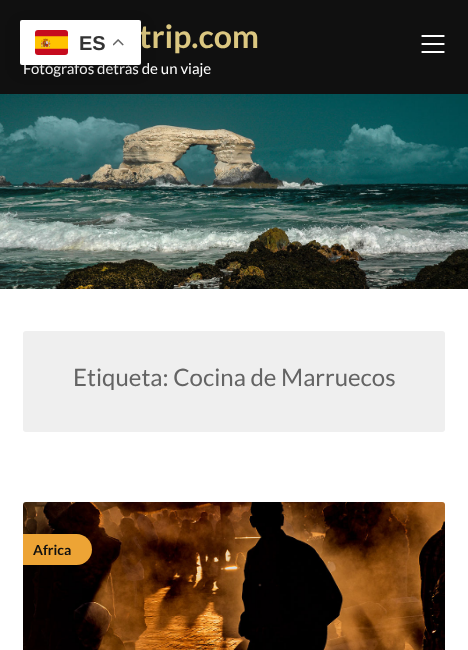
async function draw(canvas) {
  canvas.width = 468;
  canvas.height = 650;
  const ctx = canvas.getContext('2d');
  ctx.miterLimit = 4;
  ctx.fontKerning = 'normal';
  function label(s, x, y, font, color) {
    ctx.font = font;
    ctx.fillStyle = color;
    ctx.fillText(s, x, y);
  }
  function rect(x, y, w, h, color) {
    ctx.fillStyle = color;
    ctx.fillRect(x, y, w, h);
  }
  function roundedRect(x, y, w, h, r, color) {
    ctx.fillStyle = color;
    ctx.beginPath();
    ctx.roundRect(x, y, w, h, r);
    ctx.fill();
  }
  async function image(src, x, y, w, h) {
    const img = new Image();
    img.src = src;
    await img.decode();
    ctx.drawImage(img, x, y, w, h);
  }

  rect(0, 0, 468, 650, '#fff');
  rect(0, 0, 468, 94, '#101010');
  label('trip.com', 139, 48, 'bold 32px Lato', '#dbc781');
  label('Fotógrafos detrás de un viaje', 23, 74, '15px Lato', '#fff');
  await image('assets/img1.png', 421, 35, 24, 18);
  ctx.fillStyle = '#00000026';
  ctx.filter = 'blur(7.5px)';
  ctx.beginPath();
  ctx.roundRect(20, 25, 121, 45, 2);
  ctx.fill();
  ctx.filter = 'none';
  roundedRect(20, 20, 121, 45, 2, '#fff');
  await image('assets/img2.png', 35, 30, 33, 25);
  label('ES', 79, 50, 'bold 20px Liberation Sans', '#333');
  await image('assets/img3.png', 113, 39, 11, 7);
  await image('assets/img4.png', 0, 94, 468, 195);
  roundedRect(23, 331, 422, 101, 3, '#efefef');
  label('Etiqueta: Cocina de Marruecos', 73, 386, '24px Lato', '#646464');
  await image('assets/img5.png', 23, 502, 422, 148);
  ctx.fillStyle = '#eda435';
  ctx.beginPath();
  ctx.roundRect(23, 534, 69, 31, [0, 15.5, 15.5, 0]);
  ctx.fill();
  label('Africa', 33, 555, 'bold 14px Lato', '#101010');
}

draw(document.querySelector('canvas'));
